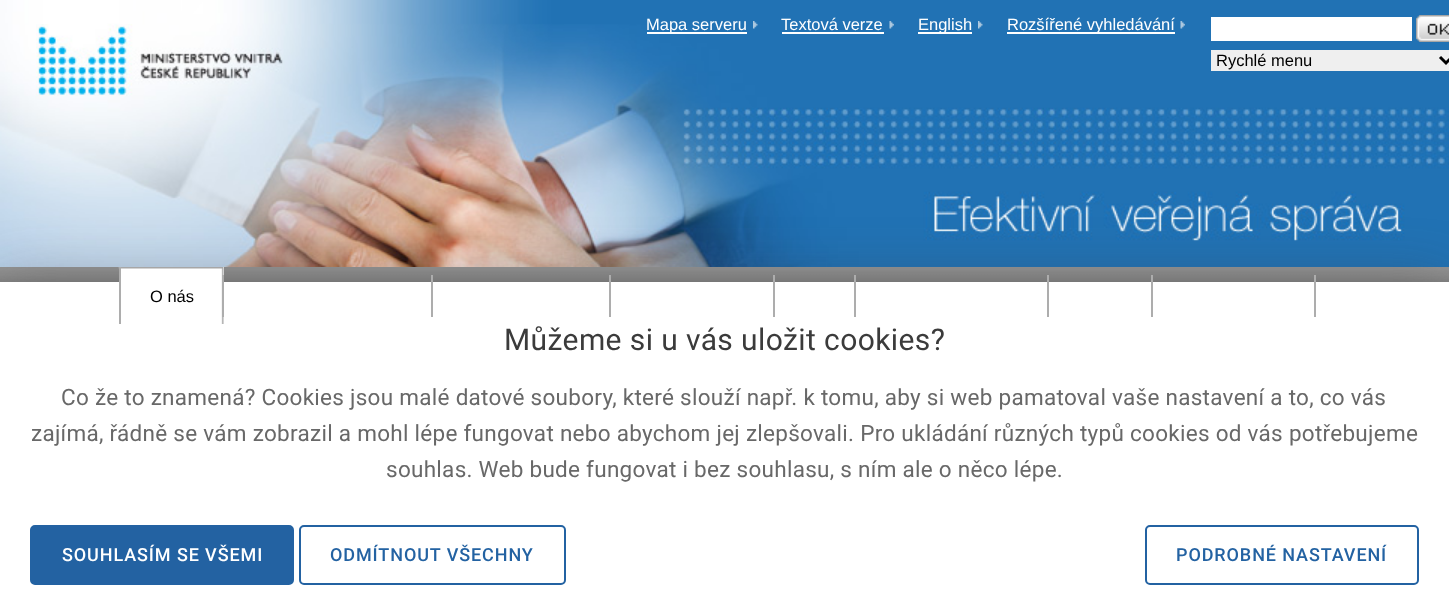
async function draw(canvas) {
  canvas.width = 1449;
  canvas.height = 614;
  const ctx = canvas.getContext('2d');
  ctx.miterLimit = 4;
  ctx.fontKerning = 'normal';
  function label(s, x, y, font, color) {
    ctx.font = font;
    ctx.fillStyle = color;
    ctx.fillText(s, x, y);
  }
  function rect(x, y, w, h, color) {
    ctx.fillStyle = color;
    ctx.fillRect(x, y, w, h);
  }
  async function image(src, x, y, w, h) {
    const img = new Image();
    img.src = src;
    await img.decode();
    ctx.drawImage(img, x, y, w, h);
  }
  let path;

  rect(0, 0, 1449, 614, '#fff');
  await image('assets/img1.png', 0, 0, 1449, 267);
  await image('assets/img2.png', 36, 24, 247, 72);
  rect(647, 32, 100, 2, '#fff');
  label('Mapa serveru', 646, 30, '16.5px Liberation Sans', '#fff');
  await image('assets/img3.png', 753, 21, 5, 8);
  label('Textová verze', 781, 30, '16.5px Liberation Sans', '#fff');
  rect(782, 32, 102, 2, '#fff');
  await image('assets/img4.png', 889, 21, 5, 8);
  rect(918, 32, 54, 2, '#fff');
  label('English', 918, 30, '16.5px Liberation Sans', '#fff');
  await image('assets/img5.png', 978, 21, 5, 8);
  rect(1007, 32, 168, 2, '#fff');
  label('Rozšířené vyhledávání', 1007, 30, '16.5px Liberation Sans', '#fff');
  await image('assets/img6.png', 1180, 21, 5, 8);
  rect(1211, 17, 201, 24, '#fff');
  await image('assets/img7.png', 1416, 15, 33, 27);
  rect(1211, 50, 238, 21, '#efefef');
  path = new Path2D('M1440 57L1446 63L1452 57');
  ctx.strokeStyle = '#000';
  ctx.lineWidth = 3;
  ctx.stroke(path);
  label('Rychlé menu', 1216, 66, '16.5px Liberation Sans', '#000');
  await image('assets/img8.png', 0, 267, 1449, 15);
  ctx.fillStyle = '#3b3b3b66';
  ctx.filter = 'blur(30px)';
  ctx.beginPath();
  ctx.rect(0, 284, 1449, 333);
  ctx.fill();
  ctx.filter = 'none';
  rect(121, 267, 103, 15, '#fff');
  rect(0, 282, 1449, 332, '#fff');
  await image('assets/img9.png', 118, 267, 106, 57);
  rect(119, 267, 2, 57, '#adadad');
  label('O nás', 150, 302, '16.5px Liberation Sans', '#000');
  rect(222, 275, 2, 42, '#adadad');
  rect(431, 275, 2, 42, '#adadad');
  rect(609, 275, 2, 42, '#adadad');
  rect(773, 275, 2, 42, '#adadad');
  rect(854, 275, 2, 42, '#adadad');
  rect(1047, 275, 2, 42, '#adadad');
  rect(1151, 275, 2, 42, '#adadad');
  rect(1314, 275, 2, 42, '#adadad');
  ctx.letterSpacing = '0.4px';
  label('Můžeme si u vás uložit cookies?', 504, 350, '30px Roboto', '#3b3b3b');
  ctx.letterSpacing = '0.28px';
  label('Co že to znamená? Cookies jsou malé datové soubory, které slouží např. k tomu, aby si web pamatoval vaše nastavení a to, co vás', 61, 405, '22.5px Roboto', '#686868');
  label('zajímá, řádně se vám zobrazil a mohl lépe fungovat nebo abychom jej zlepšovali. Pro ukládání různých typů cookies od vás potřebujeme', 31, 441, '22.5px Roboto', '#686868');
  label('souhlas. Web bude fungovat i bez souhlasu, s ním ale o něco lépe.', 386, 477, '22.5px Roboto', '#686868');
  ctx.fillStyle = '#2362a2';
  ctx.beginPath();
  ctx.roundRect(31, 526, 262, 58, 4);
  ctx.fill();
  ctx.strokeStyle = '#2362a2';
  ctx.lineWidth = 2;
  ctx.stroke();
  ctx.letterSpacing = '0.9px';
  label('SOUHLASÍM SE VŠEMI', 62, 561, '500 18px Roboto', '#fff');
  ctx.beginPath();
  ctx.roundRect(300, 526, 265, 58, 4);
  ctx.stroke();
  label('ODMÍTNOUT VŠECHNY', 330, 561, '500 18px Roboto', '#2362a2');
  ctx.beginPath();
  ctx.roundRect(1146, 526, 272, 58, 4);
  ctx.stroke();
  label('PODROBNÉ NASTAVENÍ', 1176, 561, '500 18px Roboto', '#2362a2');
}

draw(document.querySelector('canvas'));
